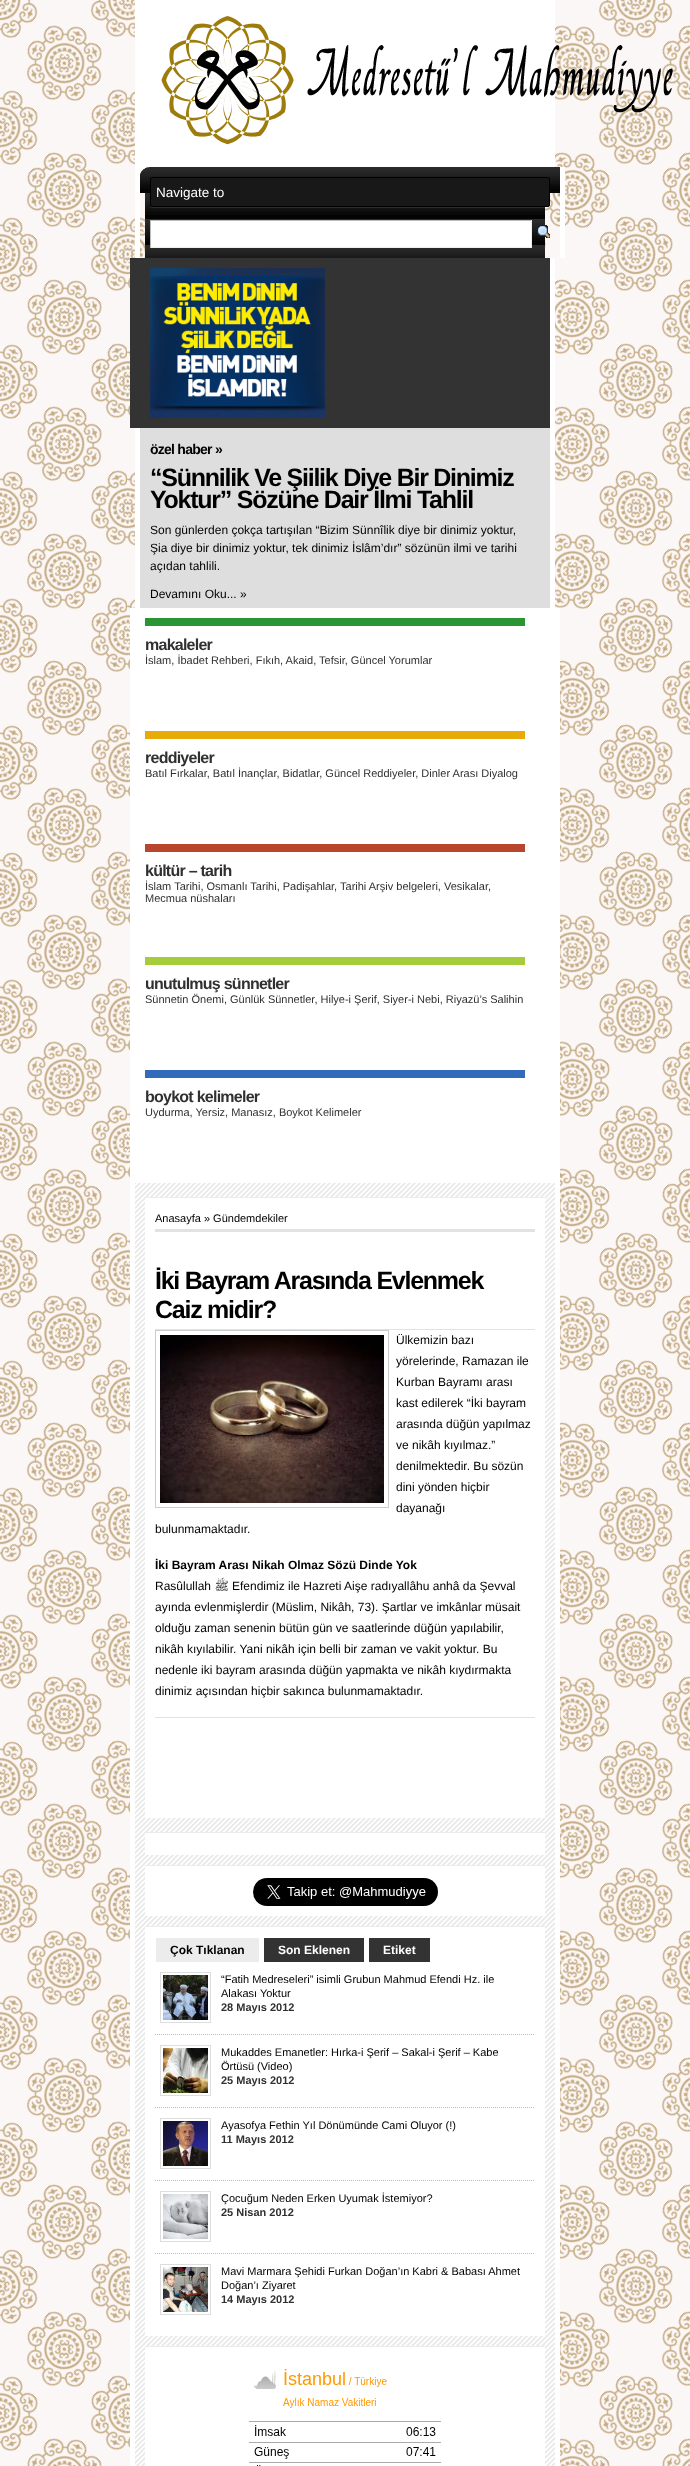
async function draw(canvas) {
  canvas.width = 690;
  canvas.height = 2466;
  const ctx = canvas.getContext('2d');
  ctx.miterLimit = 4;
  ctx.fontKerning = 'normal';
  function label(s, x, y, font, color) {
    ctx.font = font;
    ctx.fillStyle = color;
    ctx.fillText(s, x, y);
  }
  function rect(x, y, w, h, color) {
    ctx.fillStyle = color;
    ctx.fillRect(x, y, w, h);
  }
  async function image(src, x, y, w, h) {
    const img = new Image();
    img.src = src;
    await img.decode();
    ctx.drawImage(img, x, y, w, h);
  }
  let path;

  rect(0, 0, 690, 2466, '#fff');
  await image('assets/img1.png', 0, 0, 690, 2466);
  rect(135, 0, 420, 167, '#fff');
  await image('assets/img2.png', 161, 16, 512, 129);
  await image('assets/img3.png', 145, 193, 400, 65);
  await image('assets/img4.png', 140, 167, 420, 26);
  rect(560, 167, 5, 91, '#fff');
  rect(135, 167, 5, 91, '#fff');
  ctx.fillStyle = '#ffffff1a';
  path = new Path2D('M150 205C150 206 150 208 152 208H548L550 207V205C550 206 549 207 548 207H152C151 207 150 206 150 205Z');
  ctx.fill(path);
  ctx.fillStyle = '#181818';
  ctx.beginPath();
  ctx.roundRect(150.5, 177.5, 399, 29, 1.5);
  ctx.fill();
  ctx.strokeStyle = '#000';
  ctx.stroke();
  label('Navigate to', 156, 197, '13.5px Liberation Sans', '#fff');
  rect(151, 221, 380, 26, '#fff');
  rect(150, 220, 382, 1, '#bbb');
  rect(531, 220, 1, 28, '#eee');
  rect(150, 247, 382, 1, '#eee');
  rect(150, 220, 1, 28, '#bbb');
  await image('assets/img5.png', 537, 225, 13, 13);
  rect(140, 428, 410, 180, '#dedede');
  rect(550, 258, 5, 350, '#fff');
  rect(135, 428, 5, 180, '#fff');
  rect(130, 258, 420, 170, '#333');
  await image('assets/img6.png', 150, 268, 175, 150);
  ctx.letterSpacing = '-0.75px';
  label('özel haber »', 150, 454, 'bold 14px Liberation Sans', '#000');
  ctx.letterSpacing = '-1.25px';
  label('“Sünnilik Ve Şiilik Diye Bir Dinimiz', 150, 486, 'bold 25px Liberation Sans', '#000');
  label('Yoktur” Sözüne Dair İlmi Tahlil', 150, 508, 'bold 25px Liberation Sans', '#000');
  ctx.letterSpacing = '0px';
  label('Son günlerden çokça tartışılan “Bizim Sünnîlik diye bir dinimiz yoktur,', 150, 534, '12px Liberation Sans', '#000');
  label('Şia diye bir dinimiz yoktur, tek dinimiz İslâm’dır” sözünün ilmi ve tarihi', 150, 552, '12px Liberation Sans', '#000');
  label('açıdan tahlili.', 150, 570, '12px Liberation Sans', '#000');
  label('Devamını Oku... »', 150, 598, '12px Liberation Sans', '#000');
  rect(130, 608, 430, 575, '#fff');
  rect(145, 618, 380, 8, '#2b9435');
  ctx.letterSpacing = '-0.75px';
  label('makaleler', 145, 650, 'bold 16px Liberation Sans', '#303030');
  ctx.letterSpacing = '0px';
  label('İslam, İbadet Rehberi, Fıkıh, Akaid, Tefsir, Güncel Yorumlar', 145, 664, '11px Liberation Sans', '#303030');
  rect(145, 731, 380, 8, '#e6ab07');
  ctx.letterSpacing = '-0.75px';
  label('reddiyeler', 145, 763, 'bold 16px Liberation Sans', '#303030');
  ctx.letterSpacing = '0px';
  label('Batıl Fırkalar, Batıl İnançlar, Bidatlar, Güncel Reddiyeler, Dinler Arası Diyalog', 145, 777, '11px Liberation Sans', '#303030');
  rect(145, 844, 380, 8, '#b7462c');
  ctx.letterSpacing = '-0.75px';
  label('kültür – tarih', 145, 876, 'bold 16px Liberation Sans', '#303030');
  ctx.letterSpacing = '0px';
  label('İslam Tarihi, Osmanlı Tarihi, Padişahlar, Tarihi Arşiv belgeleri, Vesikalar,', 145, 890, '11px Liberation Sans', '#303030');
  label('Mecmua nüshaları', 145, 902, '11px Liberation Sans', '#303030');
  rect(145, 957, 380, 8, '#a5cc3a');
  ctx.letterSpacing = '-0.75px';
  label('unutulmuş sünnetler', 145, 989, 'bold 16px Liberation Sans', '#303030');
  ctx.letterSpacing = '0px';
  label('Sünnetin Önemi, Günlük Sünnetler, Hilye-i Şerif, Siyer-i Nebi, Riyazü’s Salihin', 145, 1003, '11px Liberation Sans', '#303030');
  rect(145, 1070, 380, 8, '#326abd');
  ctx.letterSpacing = '-0.75px';
  label('boykot kelimeler', 145, 1102, 'bold 16px Liberation Sans', '#303030');
  ctx.letterSpacing = '0px';
  label('Uydurma, Yersiz, Manasız, Boykot Kelimeler', 145, 1116, '11px Liberation Sans', '#303030');
  await image('assets/img7.png', 135, 1183, 420, 1283);
  rect(555, 1183, 5, 1283, '#fff');
  rect(130, 1183, 5, 1283, '#fff');
  rect(145, 1198, 400, 620, '#fff');
  rect(145, 1197, 400, 1, '#ececec');
  label('Anasayfa » Gündemdekiler', 155, 1222, '11px Liberation Sans', '#000');
  rect(155, 1229, 380, 3, '#e2e2e2');
  rect(155, 1329, 380, 1, '#e2e2e2');
  ctx.letterSpacing = '-1.25px';
  label('İki Bayram Arasında Evlenmek', 155, 1289, 'bold 25px Liberation Sans', '#000');
  label('Caiz midir?', 155, 1318, 'bold 25px Liberation Sans', '#000');
  rect(155, 1717, 380, 1, '#e2e2e2');
  ctx.strokeStyle = '#ccc';
  ctx.strokeRect(155.5, 1330.5, 233, 177);
  await image('assets/img8.png', 160, 1335, 224, 168);
  ctx.letterSpacing = '0px';
  label('Ülkemizin bazı', 396, 1344, '12px Liberation Sans', '#000');
  label('yörelerinde, Ramazan ile', 396, 1365, '12px Liberation Sans', '#000');
  label('Kurban Bayramı arası', 396, 1386, '12px Liberation Sans', '#000');
  label('kast edilerek “İki bayram', 396, 1407, '12px Liberation Sans', '#000');
  label('arasında düğün yapılmaz', 396, 1428, '12px Liberation Sans', '#000');
  label('ve nikâh kıyılmaz.”', 396, 1449, '12px Liberation Sans', '#000');
  label('denilmektedir. Bu sözün', 396, 1470, '12px Liberation Sans', '#000');
  label('dini yönden hiçbir', 396, 1491, '12px Liberation Sans', '#000');
  label('dayanağı', 396, 1512, '12px Liberation Sans', '#000');
  label('bulunmamaktadır.', 155, 1533, '12px Liberation Sans', '#000');
  label('İki Bayram Arası Nikah Olmaz Sözü Dinde Yok', 155, 1569, 'bold 12px Liberation Sans', '#000');
  label('Rasûlullah', 155, 1590, '12px Liberation Sans', '#000');
  ctx.direction = 'rtl';
  label('ﷺ', 229, 1590, '12px Lateef', '#000');
  ctx.direction = 'ltr';
  label('Efendimiz ile Hazreti Aişe radıyallâhu anhâ da Şevval', 232, 1590, '12px Liberation Sans', '#000');
  label('ayında evlenmişlerdir (Müslim, Nikâh, 73). Şartlar ve imkânlar müsait', 155, 1611, '12px Liberation Sans', '#000');
  label('olduğu zaman senenin bütün gün ve saatlerinde düğün yapılabilir,', 155, 1632, '12px Liberation Sans', '#000');
  label('nikâh kıyılabilir. Yani nikâh için belli bir zaman ve vakit yoktur. Bu', 155, 1653, '12px Liberation Sans', '#000');
  label('nedenle iki bayram arasında düğün yapmakta ve nikâh kıydırmakta', 155, 1674, '12px Liberation Sans', '#000');
  label('dinimiz açısından hiçbir sakınca bulunmamaktadır.', 155, 1695, '12px Liberation Sans', '#000');
  rect(145, 1833, 400, 22, '#fff');
  rect(145, 1832, 400, 1, '#ececec');
  rect(145, 1866, 400, 50, '#fff');
  rect(145, 1865, 400, 1, '#ececec');
  await image('assets/img9.png', 253, 1878, 185, 28);
  rect(145, 1927, 400, 409, '#fff');
  rect(145, 1926, 400, 1, '#ececec');
  rect(156, 1938, 103, 24, '#ececec');
  label('Çok Tıklanan', 170, 1954, 'bold 12px Liberation Sans', '#000');
  rect(264, 1938, 100, 24, '#333');
  label('Son Eklenen', 278, 1954, 'bold 12px Liberation Sans', '#fff');
  rect(369, 1938, 61, 24, '#333');
  label('Etiket', 383, 1954, 'bold 12px Liberation Sans', '#fff');
  path = new Path2D('M155 2034.5H535');
  ctx.strokeStyle = '#bbb';
  ctx.setLineDash([1, 1]);
  ctx.stroke(path);
  ctx.strokeStyle = '#ddd';
  ctx.setLineDash([]);
  ctx.strokeRect(160.5, 1972.5, 50, 50);
  await image('assets/img10.png', 163, 1975, 45, 45);
  label('“Fatih Medreseleri” isimli Grubun Mahmud Efendi Hz. ile', 221, 1983, '11px Liberation Sans', '#000');
  label('Alakası Yoktur', 221, 1997, '11px Liberation Sans', '#000');
  label('28 Mayıs 2012', 221, 2011, 'bold 11px Liberation Sans', '#303030');
  path = new Path2D('M155 2107.5H535');
  ctx.strokeStyle = '#bbb';
  ctx.setLineDash([1, 1]);
  ctx.stroke(path);
  ctx.strokeStyle = '#ddd';
  ctx.setLineDash([]);
  ctx.strokeRect(160.5, 2045.5, 50, 50);
  await image('assets/img11.png', 163, 2048, 45, 45);
  label('Mukaddes Emanetler: Hırka-i Şerif – Sakal-i Şerif – Kabe', 221, 2056, '11px Liberation Sans', '#000');
  label('Örtüsü (Video)', 221, 2070, '11px Liberation Sans', '#000');
  label('25 Mayıs 2012', 221, 2084, 'bold 11px Liberation Sans', '#303030');
  path = new Path2D('M155 2180.5H535');
  ctx.strokeStyle = '#bbb';
  ctx.setLineDash([1, 1]);
  ctx.stroke(path);
  ctx.strokeStyle = '#ddd';
  ctx.setLineDash([]);
  ctx.strokeRect(160.5, 2118.5, 50, 50);
  await image('assets/img12.png', 163, 2121, 45, 45);
  label('Ayasofya Fethin Yıl Dönümünde Cami Oluyor (!)', 221, 2129, '11px Liberation Sans', '#000');
  label('11 Mayıs 2012', 221, 2143, 'bold 11px Liberation Sans', '#303030');
  path = new Path2D('M155 2253.5H535');
  ctx.strokeStyle = '#bbb';
  ctx.setLineDash([1, 1]);
  ctx.stroke(path);
  ctx.strokeStyle = '#ddd';
  ctx.setLineDash([]);
  ctx.strokeRect(160.5, 2191.5, 50, 50);
  await image('assets/img13.png', 163, 2194, 45, 45);
  label('Çocuğum Neden Erken Uyumak İstemiyor?', 221, 2202, '11px Liberation Sans', '#000');
  label('25 Nisan 2012', 221, 2216, 'bold 11px Liberation Sans', '#303030');
  ctx.strokeRect(160.5, 2264.5, 50, 50);
  await image('assets/img14.png', 163, 2267, 45, 45);
  label('Mavi Marmara Şehidi Furkan Doğan’ın Kabri & Babası Ahmet', 221, 2275, '11px Liberation Sans', '#000');
  label('Doğan’ı Ziyaret', 221, 2289, '11px Liberation Sans', '#000');
  label('14 Mayıs 2012', 221, 2303, 'bold 11px Liberation Sans', '#303030');
  rect(145, 2347, 400, 119, '#fff');
  rect(145, 2346, 400, 1, '#ececec');
  await image('assets/img15.png', 249, 2369, 192, 97);
}

draw(document.querySelector('canvas'));
